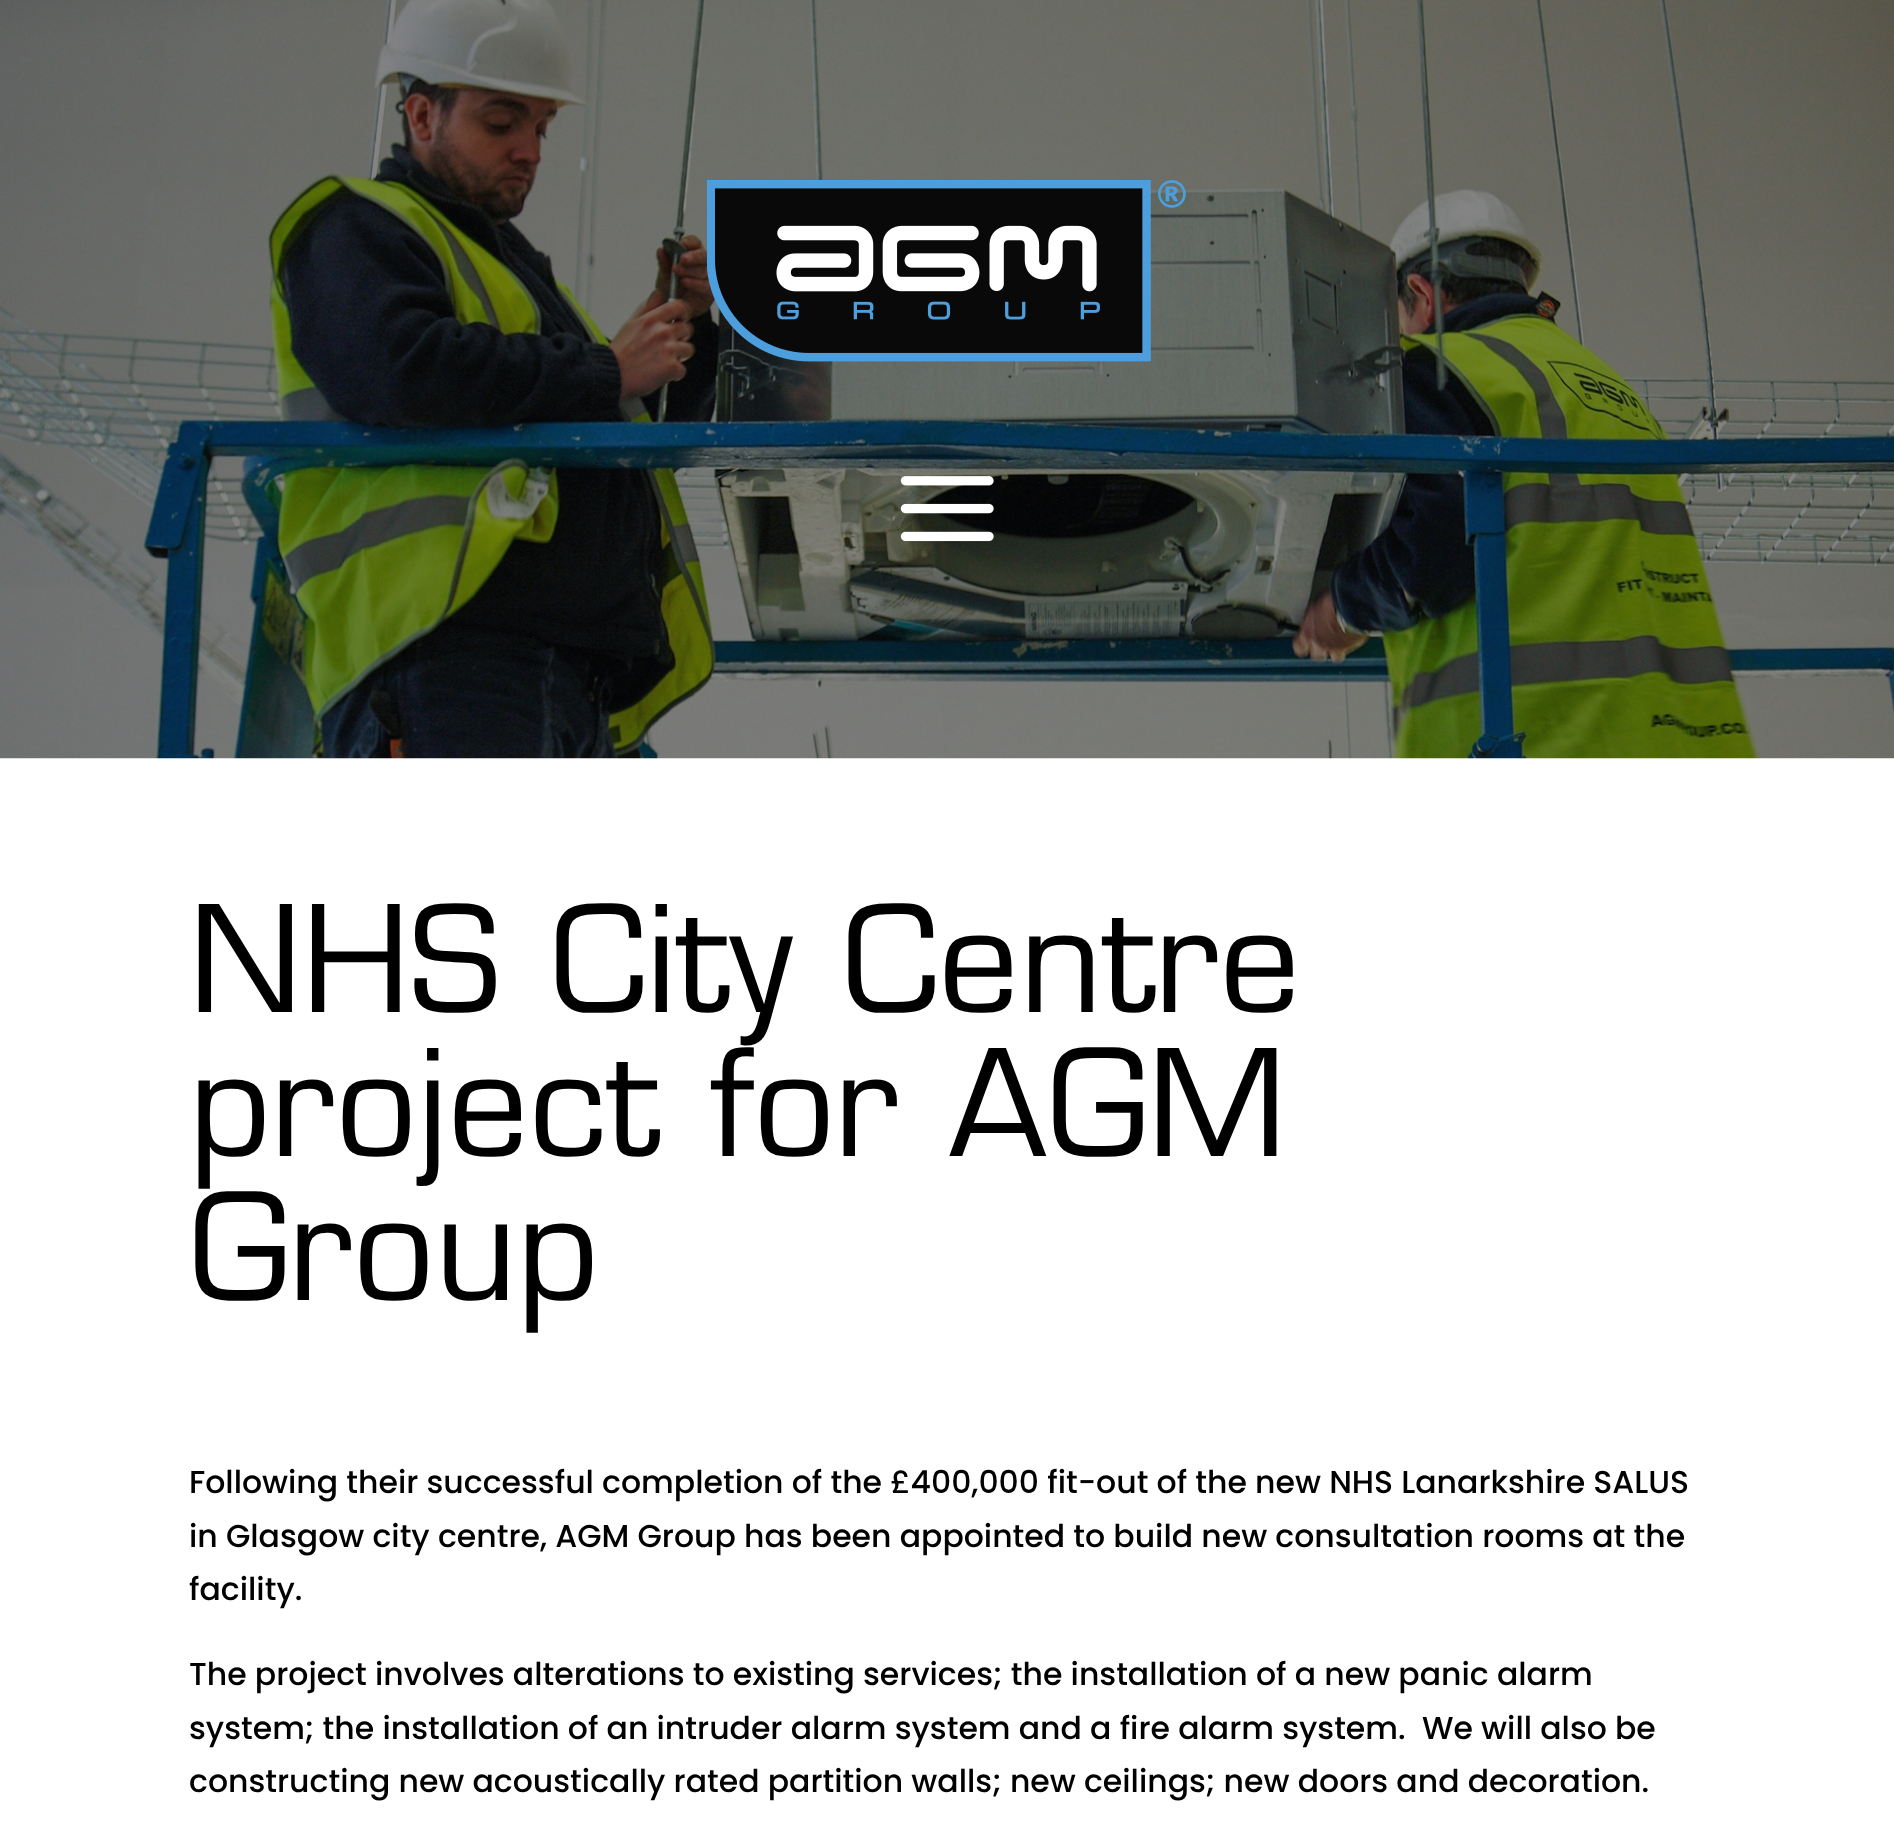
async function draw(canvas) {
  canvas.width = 1894;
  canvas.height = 1822;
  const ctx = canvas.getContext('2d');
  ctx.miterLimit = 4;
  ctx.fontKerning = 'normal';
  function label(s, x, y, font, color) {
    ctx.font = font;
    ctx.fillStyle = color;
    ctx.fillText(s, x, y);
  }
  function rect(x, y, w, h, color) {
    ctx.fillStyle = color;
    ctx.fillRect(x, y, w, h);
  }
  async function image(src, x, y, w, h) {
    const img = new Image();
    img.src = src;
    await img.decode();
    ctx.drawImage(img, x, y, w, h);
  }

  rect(0, 0, 1894, 1822, '#fff');
  await image('assets/img1.png', 0, 0, 1894, 759);
  await image('assets/img2.png', 707, 180, 479, 182);
  await image('assets/img3.png', 900, 476, 94, 66);
  label('NHS City Centre', 189, 1012, '500 144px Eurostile', '#000');
  label('project for AGM', 189, 1156, '500 144px Eurostile', '#000');
  label('Group', 189, 1300, '500 144px Eurostile', '#000');
  label('Following their successful completion of the £400,000 fit-out of the new NHS Lanarkshire SALUS', 189, 1493, '500 31.5px Poppins', '#000');
  label('in Glasgow city centre, AGM Group has been appointed to build new consultation rooms at the', 189, 1547, '500 31.5px Poppins', '#000');
  label('facility.', 189, 1600, '500 31.5px Poppins', '#000');
  label('The project involves alterations to existing services; the installation of a new panic alarm', 189, 1685, '500 31.5px Poppins', '#000');
  label('system; the installation of an intruder alarm system and a fire alarm system.  We will also be', 189, 1739, '500 31.5px Poppins', '#000');
  label('constructing new acoustically rated partition walls; new ceilings; new doors and decoration.', 189, 1792, '500 31.5px Poppins', '#000');
}

draw(document.querySelector('canvas'));
